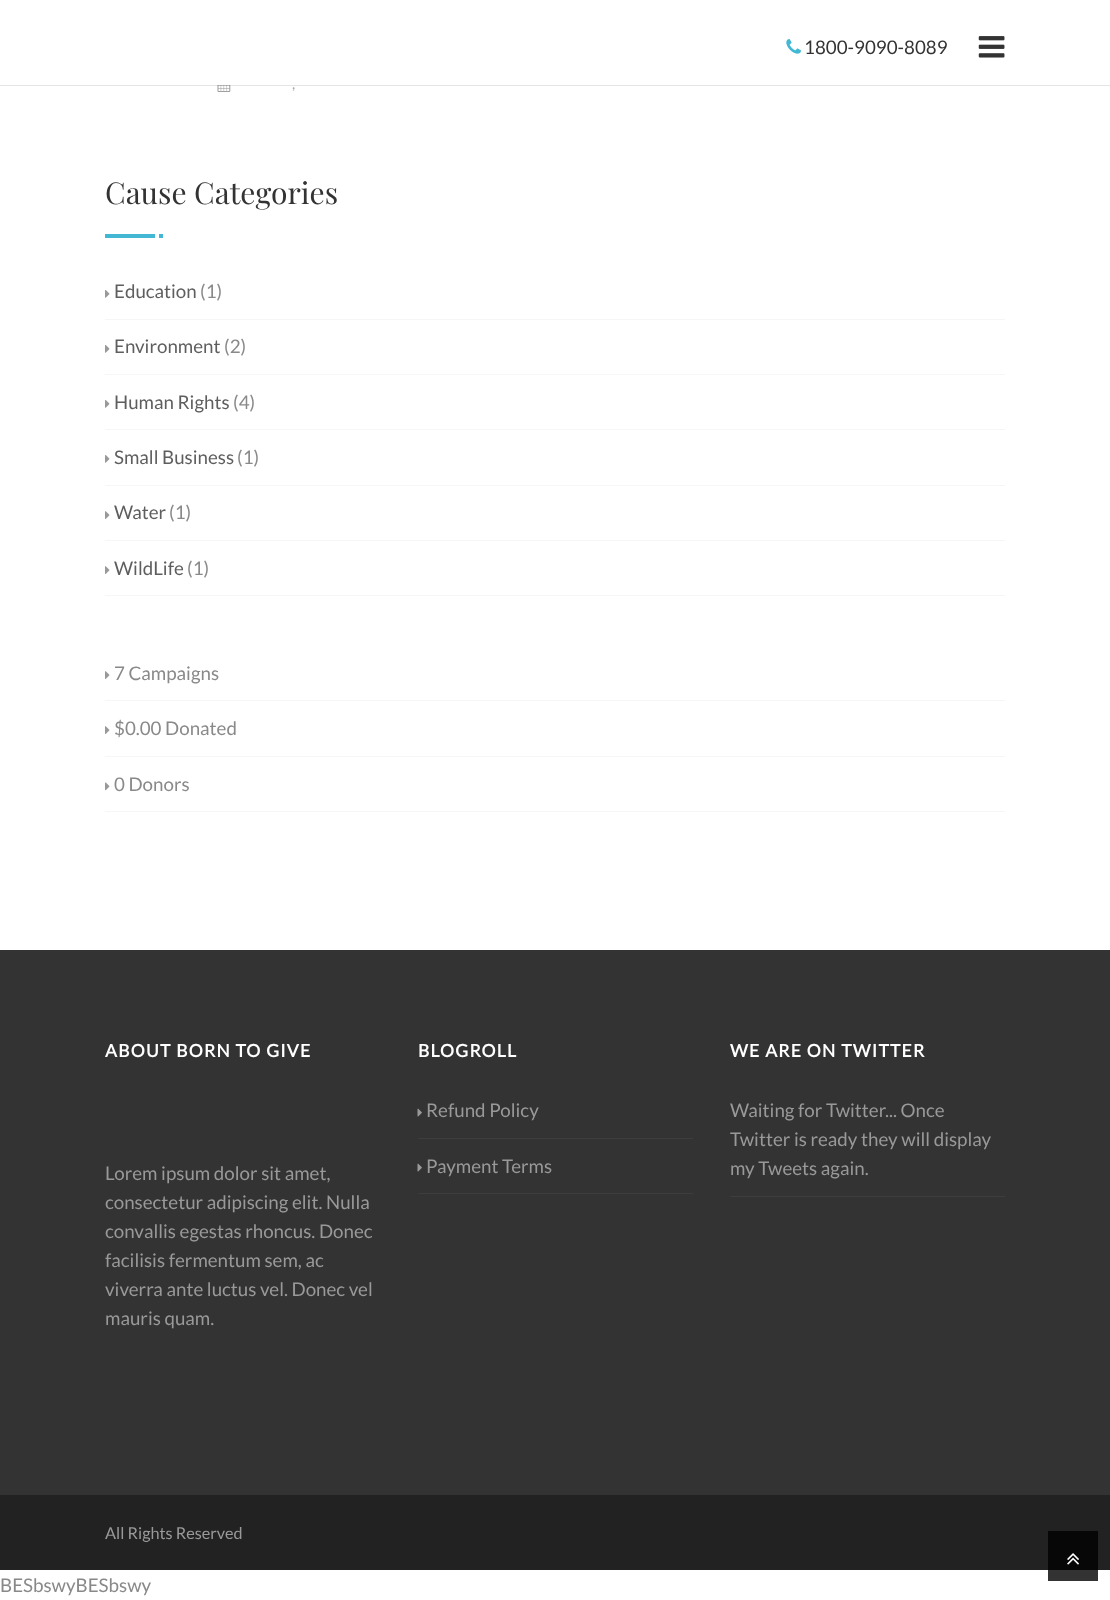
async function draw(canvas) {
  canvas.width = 1110;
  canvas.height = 1600;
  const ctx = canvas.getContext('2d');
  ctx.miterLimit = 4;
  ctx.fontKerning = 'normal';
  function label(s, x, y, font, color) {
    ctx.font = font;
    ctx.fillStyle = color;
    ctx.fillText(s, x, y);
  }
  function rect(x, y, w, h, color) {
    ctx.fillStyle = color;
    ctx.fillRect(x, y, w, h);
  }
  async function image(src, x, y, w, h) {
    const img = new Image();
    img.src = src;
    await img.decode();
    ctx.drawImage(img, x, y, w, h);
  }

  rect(0, 0, 1110, 1600, '#fff');
  rect(1048, 1570, 50, 11, '#333');
  await image('assets/img3.png', 217, 85, 14, 7);
  ctx.fillStyle = '#0000001a';
  ctx.filter = 'blur(0.5px)';
  ctx.beginPath();
  ctx.rect(0, 1, 1110, 85);
  ctx.fill();
  ctx.filter = 'none';
  rect(0, 0, 1110, 85, '#fff');
  await image('assets/img1.png', 786, 39, 15, 15);
  label('1800-9090-8089', 804, 54, '18.75px Lato', '#333');
  await image('assets/img2.png', 978, 36, 27, 22);
  label(',', 292, 89, '15px Lato', '#aaa');
  label('Cause Categories', 105, 204, '30px Playfair Display', '#333');
  rect(105, 234, 50, 4, '#42b8d4');
  rect(159, 234, 4, 4, '#42b8d4');
  rect(105, 319, 900, 1, '#f6f6f6');
  await image('assets/img4.png', 105, 290, 5, 8);
  label('Education', 114, 298, '18.75px Lato', '#5e5e5e');
  label('(1)', 200, 298, '18.75px Lato', '#898989');
  rect(105, 374, 900, 1, '#f6f6f6');
  await image('assets/img4.png', 105, 345, 5, 8);
  label('Environment', 114, 353, '18.75px Lato', '#5e5e5e');
  label('(2)', 224, 353, '18.75px Lato', '#898989');
  rect(105, 429, 900, 1, '#f6f6f6');
  await image('assets/img4.png', 105, 400, 5, 8);
  label('Human Rights', 114, 409, '18.75px Lato', '#5e5e5e');
  label('(4)', 233, 409, '18.75px Lato', '#898989');
  rect(105, 485, 900, 1, '#f6f6f6');
  await image('assets/img4.png', 105, 455, 5, 8);
  label('Small Business', 114, 464, '18.75px Lato', '#5e5e5e');
  label('(1)', 237, 464, '18.75px Lato', '#898989');
  rect(105, 540, 900, 1, '#f6f6f6');
  await image('assets/img5.png', 105, 511, 5, 8);
  label('Water', 114, 519, '18.75px Lato', '#5e5e5e');
  label('(1)', 169, 519, '18.75px Lato', '#898989');
  rect(105, 595, 900, 1, '#f6f6f6');
  await image('assets/img5.png', 105, 566, 5, 8);
  label('WildLife', 114, 575, '18.75px Lato', '#5e5e5e');
  label('(1)', 187, 575, '18.75px Lato', '#898989');
  rect(105, 700, 900, 1, '#f6f6f6');
  await image('assets/img5.png', 105, 671, 5, 8);
  label('7 Campaigns', 114, 680, '18.75px Lato', '#898989');
  rect(105, 756, 900, 1, '#f6f6f6');
  await image('assets/img5.png', 105, 726, 5, 8);
  label('$0.00 Donated', 114, 735, '18.75px Lato', '#898989');
  rect(105, 811, 900, 1, '#f6f6f6');
  await image('assets/img6.png', 105, 782, 5, 9);
  label('0 Donors', 114, 791, '18.75px Lato', '#898989');
  rect(0, 950, 1110, 545, '#333');
  ctx.letterSpacing = '1.25px';
  label('ABOUT BORN TO GIVE', 105, 1057, 'bold 17.5px Lato', '#fff');
  ctx.letterSpacing = '0px';
  label('Lorem ipsum dolor sit amet,', 105, 1180, '18.75px Lato', '#999');
  label('consectetur adipiscing elit. Nulla', 105, 1209, '18.75px Lato', '#999');
  label('convallis egestas rhoncus. Donec', 105, 1238, '18.75px Lato', '#999');
  label('facilisis fermentum sem, ac', 105, 1267, '18.75px Lato', '#999');
  label('viverra ante luctus vel. Donec vel', 105, 1296, '18.75px Lato', '#999');
  label('mauris quam.', 105, 1325, '18.75px Lato', '#999');
  ctx.letterSpacing = '1.25px';
  label('BLOGROLL', 418, 1057, 'bold 17.5px Lato', '#fff');
  rect(418, 1138, 275, 1, '#3d3d3d');
  await image('assets/img7.png', 417, 1108, 5, 9);
  ctx.letterSpacing = '0px';
  label('Refund Policy', 426, 1117, '18.75px Lato', '#999');
  rect(418, 1193, 275, 1, '#3d3d3d');
  await image('assets/img7.png', 417, 1163, 5, 9);
  label('Payment Terms', 426, 1173, '18.75px Lato', '#999');
  ctx.letterSpacing = '1.25px';
  label('WE ARE ON TWITTER', 730, 1057, 'bold 17.5px Lato', '#fff');
  rect(730, 1196, 275, 1, '#3d3d3d');
  ctx.letterSpacing = '0px';
  label('Waiting for Twitter... Once', 730, 1117, '18.75px Lato', '#999');
  label('Twitter is ready they will display', 730, 1146, '18.75px Lato', '#999');
  label('my Tweets again.', 730, 1175, '18.75px Lato', '#999');
  rect(0, 1495, 1110, 75, '#222');
  rect(1048, 1531, 50, 39, '#070707');
  label('All Rights Reserved', 105, 1539, '16.25px Lato', '#999');
  await image('assets/img8.png', 1067, 1553, 12, 12);
  label('BESbswyBESbswy', 0, 1592, '18.75px Lato', '#898989');
}

draw(document.querySelector('canvas'));
